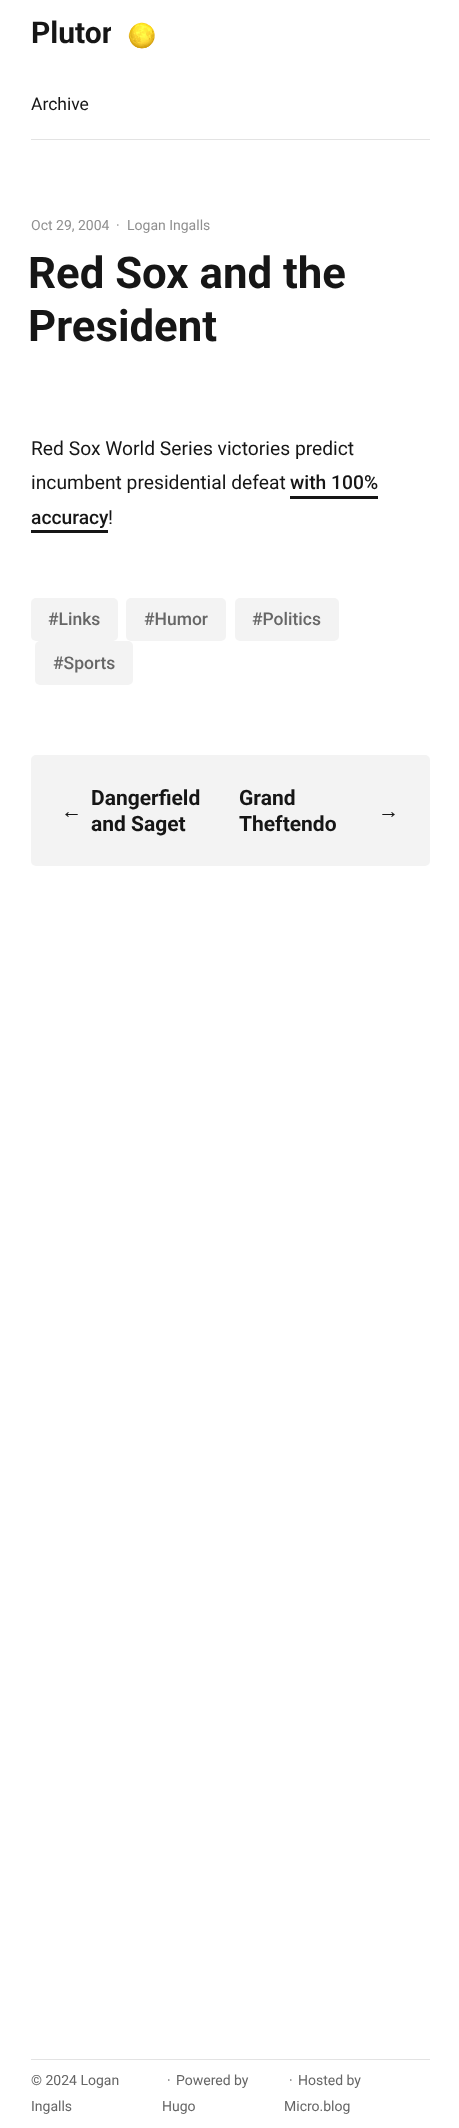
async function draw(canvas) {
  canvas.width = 459;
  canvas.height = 2128;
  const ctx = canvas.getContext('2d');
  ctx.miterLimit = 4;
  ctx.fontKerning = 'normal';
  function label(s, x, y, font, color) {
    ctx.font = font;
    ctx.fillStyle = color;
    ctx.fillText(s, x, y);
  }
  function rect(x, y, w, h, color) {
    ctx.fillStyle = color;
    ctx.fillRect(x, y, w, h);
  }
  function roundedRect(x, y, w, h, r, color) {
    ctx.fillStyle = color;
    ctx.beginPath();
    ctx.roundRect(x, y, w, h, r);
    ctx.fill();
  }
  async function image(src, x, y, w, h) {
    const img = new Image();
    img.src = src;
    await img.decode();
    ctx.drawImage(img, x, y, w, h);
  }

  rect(0, 0, 459, 2128, '#fff');
  ctx.save();
  ctx.beginPath();
  ctx.rect(31, 0, 80, 70);
  ctx.clip();
  label('Plutor', 31, 43, 'bold 30px Roboto', '#161616');
  ctx.restore();
  await image('assets/img1.png', 128, 22, 27, 27);
  rect(31, 139, 399, 1, '#e3e3e3');
  label('Archive', 31, 110, '17.5px Roboto', '#161616');
  label('Oct 29, 2004', 31, 230, '14px Roboto', '#8f8f8f');
  label('·', 116, 230, '14px Roboto', '#8f8f8f');
  label('Logan Ingalls', 127, 230, '14px Roboto', '#8f8f8f');
  label('Red Sox and the', 28, 288, 'bold 43.75px Roboto', '#161616');
  label('President', 28, 341, 'bold 43.75px Roboto', '#161616');
  label('Red Sox World Series victories predict', 31, 455, '19.25px Roboto', '#161616');
  label('incumbent presidential defeat', 31, 489, '19.25px Roboto', '#161616');
  label('with 100%', 290, 489, '500 19.25px Roboto', '#161616');
  rect(290, 496, 88, 3, '#161616');
  label('accuracy', 31, 524, '500 19.25px Roboto', '#161616');
  rect(31, 530, 77, 3, '#161616');
  label('!', 108, 524, '19.25px Roboto', '#161616');
  roundedRect(31, 598, 87, 43, 5, '#f3f3f3');
  label('#Links', 48, 625, '500 17.5px Roboto', '#666');
  roundedRect(126, 598, 100, 43, 5, '#f3f3f3');
  label('#Humor', 144, 625, '500 17.5px Roboto', '#666');
  roundedRect(235, 598, 104, 43, 5, '#f3f3f3');
  label('#Politics', 252, 625, '500 17.5px Roboto', '#666');
  roundedRect(35, 641, 98, 44, 5, '#f3f3f3');
  label('#Sports', 53, 669, '500 17.5px Roboto', '#666');
  roundedRect(31, 755, 399, 111, 5, '#f3f3f3');
  label('←', 61, 818, 'bold 21px Liberation Sans', '#161616');
  label('Dangerfield', 91, 805, 'bold 21px Roboto', '#161616');
  label('and Saget', 91, 831, 'bold 21px Roboto', '#161616');
  label('Grand', 239, 805, 'bold 21px Roboto', '#161616');
  label('Theftendo', 239, 831, 'bold 21px Roboto', '#161616');
  label('→', 378, 818, 'bold 21px Liberation Sans', '#161616');
  rect(31, 2059, 399, 1, '#e3e3e3');
  label('© 2024 Logan', 31, 2085, '14px Roboto', '#666');
  label('Ingalls', 31, 2111, '14px Roboto', '#666');
  label('·', 167, 2085, '14px Roboto', '#666');
  label('Powered by', 176, 2085, '14px Roboto', '#666');
  label('Hugo️️', 162, 2111, '14px Roboto', '#666');
  label('·', 289, 2085, '14px Roboto', '#666');
  label('Hosted by', 298, 2085, '14px Roboto', '#666');
  label('Micro.blog', 284, 2111, '14px Roboto', '#666');
}

draw(document.querySelector('canvas'));
